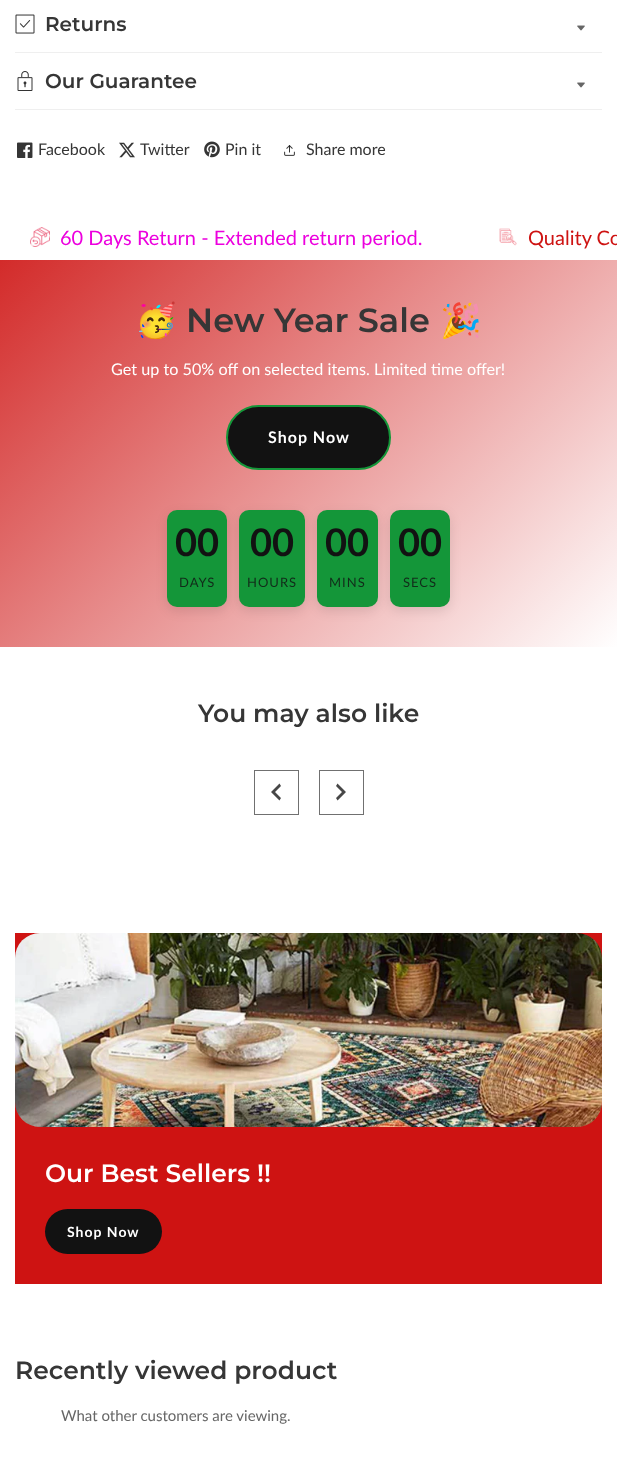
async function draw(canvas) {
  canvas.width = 617;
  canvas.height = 1467;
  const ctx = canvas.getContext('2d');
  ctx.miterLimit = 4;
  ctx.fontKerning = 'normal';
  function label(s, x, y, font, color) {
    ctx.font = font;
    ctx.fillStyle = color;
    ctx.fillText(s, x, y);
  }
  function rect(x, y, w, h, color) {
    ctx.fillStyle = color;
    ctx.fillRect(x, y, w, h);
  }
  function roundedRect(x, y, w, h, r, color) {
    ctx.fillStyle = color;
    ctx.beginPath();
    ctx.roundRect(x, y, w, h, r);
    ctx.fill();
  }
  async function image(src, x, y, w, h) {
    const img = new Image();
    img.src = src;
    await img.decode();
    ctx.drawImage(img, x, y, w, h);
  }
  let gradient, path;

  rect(0, 0, 617, 1467, '#fff');
  rect(15, 52, 587, 1, '#efefef');
  await image('assets/img1.png', 15, 14, 20, 20);
  label('Returns', 45, 31, '600 20px Montserrat', '#363636');
  await image('assets/img2.png', 577, 25, 8, 6);
  rect(15, 109, 587, 1, '#efefef');
  await image('assets/img3.png', 17, 71, 16, 20);
  label('Our Guarantee', 45, 88, '600 20px Montserrat', '#363636');
  await image('assets/img2.png', 577, 82, 8, 6);
  await image('assets/img4.png', 17, 142, 16, 16);
  label('Facebook', 38, 155, '16px Lato', '#363636');
  await image('assets/img5.png', 119, 142, 16, 16);
  label('Twitter', 140, 155, '16px Lato', '#363636');
  await image('assets/img6.png', 204, 141, 16, 17);
  label('Pin it', 225, 155, '16px Lato', '#363636');
  await image('assets/img7.png', 284, 145, 11, 11);
  label('Share more', 306, 155, '16px Lato', '#363636');
  await image('assets/img8.png', 30, 227, 20, 20);
  label('60 Days Return - Extended return period.', 60, 245, '20px Lato', '#ec00de');
  await image('assets/img9.png', 499, 228, 18, 18);
  label('Quality Co', 528, 245, '20px Lato', '#ce1312');
  gradient = ctx.createLinearGradient(57, 203, 560, 705);
  gradient.addColorStop(0, '#d32b2a');
  gradient.addColorStop(1, '#fff');
  ctx.fillStyle = gradient;
  ctx.fillRect(0, 260, 617, 387);
  label('🥳', 135, 332, 'bold 33.5px Noto Color Emoji', '#363636');
  label('New Year Sale', 186, 332, '600 33.5px Montserrat', '#363636');
  label('🎉', 440, 332, 'bold 33.5px Noto Color Emoji', '#363636');
  label('Get up to 50% off on selected items. Limited time offer!', 111, 375, '16.2px Lato', '#fff');
  ctx.fillStyle = '#121212';
  ctx.beginPath();
  ctx.roundRect(227, 406, 163, 63, 31.5);
  ctx.fill();
  ctx.strokeStyle = '#149639';
  ctx.lineWidth = 2;
  ctx.stroke();
  ctx.letterSpacing = '1px';
  label('Shop Now', 268, 443, 'bold 16px Lato', '#fff');
  ctx.fillStyle = '#0000001a';
  ctx.filter = 'blur(6px)';
  ctx.beginPath();
  ctx.roundRect(167, 514, 60, 97, 10);
  ctx.fill();
  ctx.filter = 'none';
  roundedRect(167, 510, 60, 97, 10, '#149639');
  ctx.letterSpacing = '0px';
  label('00', 175, 556, 'bold 38px Lato', '#121212');
  ctx.letterSpacing = '1px';
  label('DAYS', 179, 587, '13px Lato', '#122c1a');
  ctx.fillStyle = '#0000001a';
  ctx.filter = 'blur(6px)';
  ctx.beginPath();
  ctx.roundRect(239, 514, 66, 97, 10);
  ctx.fill();
  ctx.filter = 'none';
  roundedRect(239, 510, 66, 97, 10, '#149639');
  ctx.letterSpacing = '0px';
  label('00', 250, 556, 'bold 38px Lato', '#121212');
  ctx.letterSpacing = '1px';
  label('HOURS', 247, 587, '13px Lato', '#122c1a');
  ctx.fillStyle = '#0000001a';
  ctx.filter = 'blur(6px)';
  ctx.beginPath();
  ctx.roundRect(317, 514, 61, 97, 10);
  ctx.fill();
  ctx.filter = 'none';
  roundedRect(317, 510, 61, 97, 10, '#149639');
  ctx.letterSpacing = '0px';
  label('00', 325, 556, 'bold 38px Lato', '#121212');
  ctx.letterSpacing = '1px';
  label('MINS', 329, 587, '13px Lato', '#122c1a');
  ctx.fillStyle = '#0000001a';
  ctx.filter = 'blur(6px)';
  ctx.beginPath();
  ctx.roundRect(390, 514, 60, 97, 10);
  ctx.fill();
  ctx.filter = 'none';
  roundedRect(390, 510, 60, 97, 10, '#149639');
  ctx.letterSpacing = '0px';
  label('00', 398, 556, 'bold 38px Lato', '#121212');
  ctx.letterSpacing = '1px';
  label('SECS', 403, 587, '13px Lato', '#122c1a');
  ctx.letterSpacing = '0px';
  label('You may also like', 198, 722, '600 25px Montserrat', '#363636');
  ctx.strokeStyle = '#707070';
  ctx.lineWidth = 1;
  ctx.strokeRect(254.5, 770.5, 44, 44);
  ctx.fillStyle = '#474747';
  path = new Path2D('M281 786L275 792L281 798L279.5 800.5L271 792L279.5 783.5Z');
  ctx.fill(path);
  ctx.strokeRect(319.5, 770.5, 44, 44);
  path = new Path2D('M336 786L342 792L336 798L337.5 800.5L346 792L337.5 783.5Z');
  ctx.fill(path);
  rect(15, 933, 587, 351, '#ce1312');
  roundedRect(15, 933, 587, 194, 25, '#d32b2a');
  await image('assets/img10.png', 15, 933, 587, 194);
  label('Our Best Sellers !!', 45, 1182, '600 25px Montserrat', '#fff');
  roundedRect(45, 1209, 117, 45, 22.5, '#121212');
  ctx.letterSpacing = '1px';
  label('Shop Now', 67, 1237, 'bold 14px Lato', '#fff');
  ctx.letterSpacing = '0px';
  label('Recently viewed product', 15, 1379, '600 25px Montserrat', '#363636');
  label('What other customers are viewing.', 61, 1421, '15px Lato', '#666');
}

draw(document.querySelector('canvas'));
